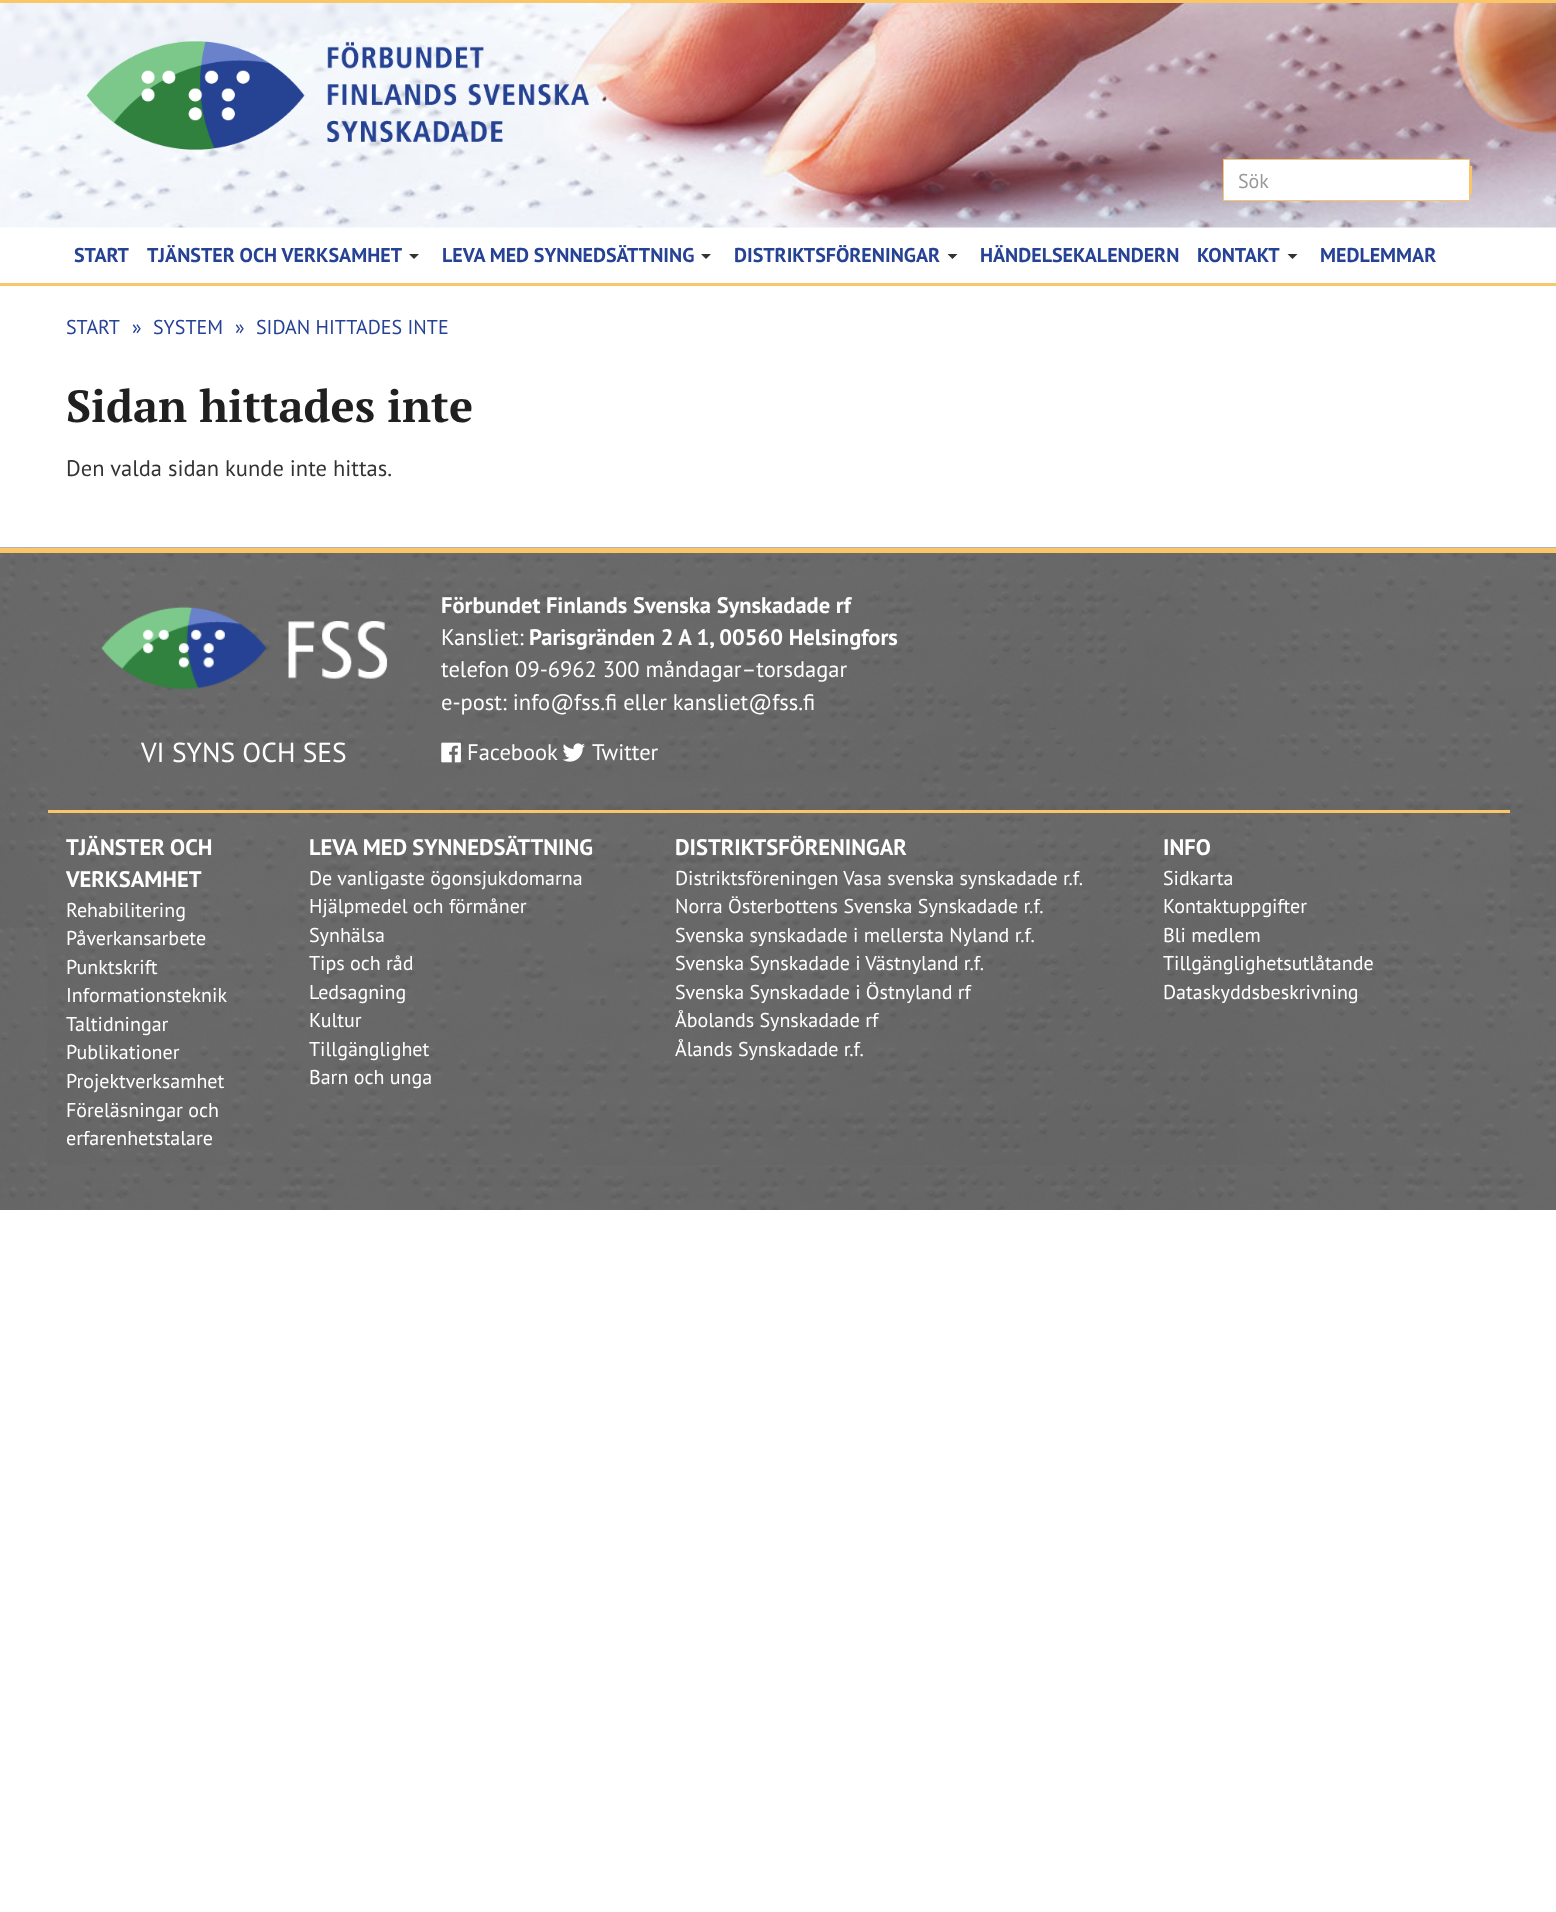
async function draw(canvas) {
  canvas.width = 1556;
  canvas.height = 1912;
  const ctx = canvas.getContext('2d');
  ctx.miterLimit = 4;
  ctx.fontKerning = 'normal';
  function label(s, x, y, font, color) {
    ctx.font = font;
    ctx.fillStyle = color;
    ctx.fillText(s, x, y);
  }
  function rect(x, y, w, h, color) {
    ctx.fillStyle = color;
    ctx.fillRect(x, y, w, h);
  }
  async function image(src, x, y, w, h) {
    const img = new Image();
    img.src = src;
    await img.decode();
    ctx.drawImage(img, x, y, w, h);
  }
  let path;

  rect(0, 0, 1556, 1912, '#fff');
  await image('assets/img1.png', 0, 3, 1556, 225);
  rect(0, 0, 1556, 3, '#fac668');
  rect(0, 283, 1556, 3, '#fac668');
  await image('assets/img2.png', 86, 41, 504, 109);
  ctx.fillStyle = '#fff';
  ctx.beginPath();
  ctx.rect(1223.5, 159.5, 246, 41);
  ctx.fill();
  ctx.strokeStyle = '#fac668';
  ctx.stroke();
  label('Sök', 1238, 188, '20px PT Sans', '#999');
  rect(1470, 166, 2, 28, '#fac668');
  label('START', 74, 262, 'bold 20px PT Sans', '#264294');
  label('TJÄNSTER OCH VERKSAMHET', 147, 262, 'bold 20px PT Sans', '#264294');
  ctx.fillStyle = '#333';
  path = new Path2D('M409 254H419L414 259Z');
  ctx.fill(path);
  label('LEVA MED SYNNEDSÄTTNING', 442, 262, 'bold 20px PT Sans', '#264294');
  ctx.fillStyle = '#333';
  path = new Path2D('M701 254H711L706 259Z');
  ctx.fill(path);
  label('DISTRIKTSFÖRENINGAR', 734, 262, 'bold 20px PT Sans', '#264294');
  ctx.fillStyle = '#333';
  path = new Path2D('M947.5 254H957.5L952.5 259Z');
  ctx.fill(path);
  label('HÄNDELSEKALENDERN', 980, 262, 'bold 20px PT Sans', '#264294');
  label('KONTAKT', 1197, 262, 'bold 20px PT Sans', '#264294');
  ctx.fillStyle = '#333';
  path = new Path2D('M1287.5 254H1297.5L1292.5 259Z');
  ctx.fill(path);
  label('MEDLEMMAR', 1320, 262, 'bold 20px PT Sans', '#264294');
  label('START', 66, 334, '20px PT Sans', '#264294');
  label('»', 132, 334, '20px PT Sans', '#264294');
  label('SYSTEM', 153, 334, '20px PT Sans', '#264294');
  label('»', 235, 334, '20px PT Sans', '#264294');
  label('SIDAN HITTADES INTE', 256, 334, '20px PT Sans', '#264294');
  label('Sidan hittades inte', 66, 422, 'bold 45px PT Serif', '#202020');
  label('Den valda sidan kunde inte hittas.', 66, 476, '22.5px PT Sans', '#333');
  await image('assets/img3.png', 0, 547, 1556, 663);
  rect(0, 548, 1556, 5, '#fac668');
  await image('assets/img4.png', 101, 606, 287, 84);
  label('VI SYNS OCH SES', 141, 762, '27.5px PT Sans', '#fff');
  label('Förbundet Finlands Svenska Synskadade rf', 441, 613, 'bold 22.5px PT Sans', '#fff');
  label('Kansliet:', 441, 645, '22.5px PT Sans', '#fff');
  label('Parisgränden 2 A 1, 00560 Helsingfors', 529, 645, 'bold 22.5px PT Sans', '#fff');
  label('telefon 09-6962 300 måndagar–torsdagar', 441, 677, '22.5px PT Sans', '#fff');
  label('e-post: info@fss.fi eller kansliet@fss.fi', 441, 710, '22.5px PT Sans', '#fff');
  await image('assets/img5.png', 441, 742, 20, 21);
  label('Facebook', 467, 760, '22.5px PT Sans', '#fff');
  await image('assets/img6.png', 562, 743, 23, 19);
  label('Twitter', 592, 760, '22.5px PT Sans', '#fff');
  await image('assets/img7.png', 47, 810, 1463, 355);
  rect(48, 810, 1462, 3, '#fac668');
  label('TJÄNSTER OCH', 66, 855, 'bold 22.5px PT Sans', '#fff');
  label('VERKSAMHET', 66, 887, 'bold 22.5px PT Sans', '#fff');
  label('Rehabilitering', 66, 917, '20px PT Sans', '#fff');
  label('Påverkansarbete', 66, 945, '20px PT Sans', '#fff');
  label('Punktskrift', 66, 974, '20px PT Sans', '#fff');
  label('Informationsteknik', 66, 1002, '20px PT Sans', '#fff');
  label('Taltidningar', 66, 1031, '20px PT Sans', '#fff');
  label('Publikationer', 66, 1059, '20px PT Sans', '#fff');
  label('Projektverksamhet', 66, 1088, '20px PT Sans', '#fff');
  label('Föreläsningar och', 66, 1117, '20px PT Sans', '#fff');
  label('erfarenhetstalare', 66, 1145, '20px PT Sans', '#fff');
  label('LEVA MED SYNNEDSÄTTNING', 309, 855, 'bold 22.5px PT Sans', '#fff');
  label('De vanligaste ögonsjukdomarna', 309, 885, '20px PT Sans', '#fff');
  label('Hjälpmedel och förmåner', 309, 913, '20px PT Sans', '#fff');
  label('Synhälsa', 309, 942, '20px PT Sans', '#fff');
  label('Tips och råd', 309, 970, '20px PT Sans', '#fff');
  label('Ledsagning', 309, 999, '20px PT Sans', '#fff');
  label('Kultur', 309, 1027, '20px PT Sans', '#fff');
  label('Tillgänglighet', 309, 1056, '20px PT Sans', '#fff');
  label('Barn och unga', 309, 1084, '20px PT Sans', '#fff');
  label('DISTRIKTSFÖRENINGAR', 675, 855, 'bold 22.5px PT Sans', '#fff');
  label('Distriktsföreningen Vasa svenska synskadade r.f.', 675, 885, '20px PT Sans', '#fff');
  label('Norra Österbottens Svenska Synskadade r.f.', 675, 913, '20px PT Sans', '#fff');
  label('Svenska synskadade i mellersta Nyland r.f.', 675, 942, '20px PT Sans', '#fff');
  label('Svenska Synskadade i Västnyland r.f.', 675, 970, '20px PT Sans', '#fff');
  label('Svenska Synskadade i Östnyland rf', 675, 999, '20px PT Sans', '#fff');
  label('Åbolands Synskadade rf', 675, 1027, '20px PT Sans', '#fff');
  label('Ålands Synskadade r.f.', 675, 1056, '20px PT Sans', '#fff');
  label('INFO', 1163, 855, 'bold 22.5px PT Sans', '#fff');
  label('Sidkarta', 1163, 885, '20px PT Sans', '#fff');
  label('Kontaktuppgifter', 1163, 913, '20px PT Sans', '#fff');
  label('Bli medlem', 1163, 942, '20px PT Sans', '#fff');
  label('Tillgänglighetsutlåtande', 1163, 970, '20px PT Sans', '#fff');
  label('Dataskyddsbeskrivning', 1163, 999, '20px PT Sans', '#fff');
}

draw(document.querySelector('canvas'));
